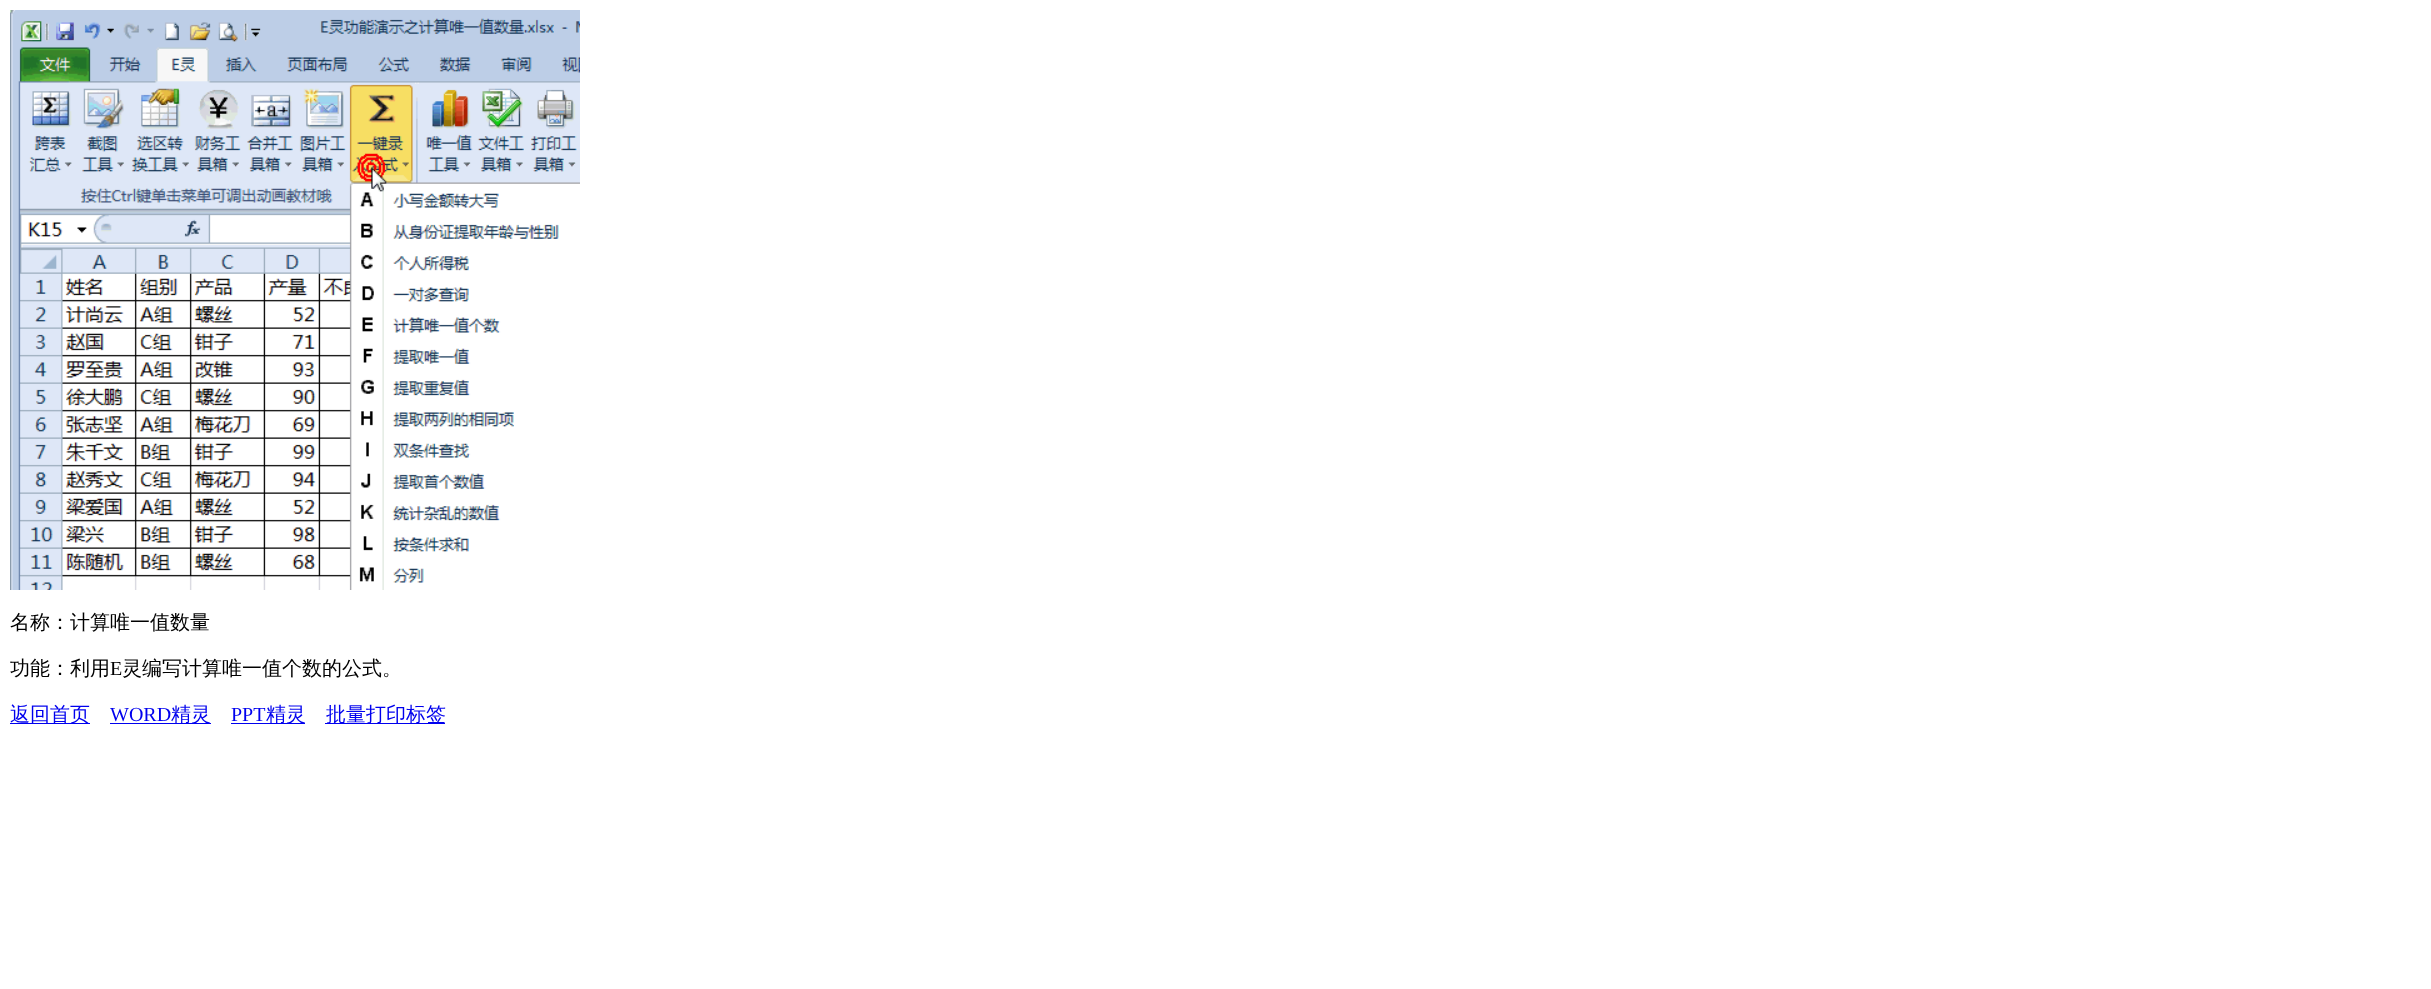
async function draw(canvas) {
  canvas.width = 2431;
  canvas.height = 989;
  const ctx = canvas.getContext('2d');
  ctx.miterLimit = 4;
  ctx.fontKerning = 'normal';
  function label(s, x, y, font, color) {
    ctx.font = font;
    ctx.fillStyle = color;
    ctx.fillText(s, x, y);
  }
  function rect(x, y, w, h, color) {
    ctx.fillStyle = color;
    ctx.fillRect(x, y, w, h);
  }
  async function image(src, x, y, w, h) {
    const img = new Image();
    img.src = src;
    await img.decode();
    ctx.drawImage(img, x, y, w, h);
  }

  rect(0, 0, 2431, 989, '#fff');
  await image('assets/img1.png', 10, 10, 570, 580);
  label('名称：计算唯一值数量', 10, 629, '500 20px WenQuanYi Zen Hei', '#000');
  label('功能：利用', 10, 675, '500 20px WenQuanYi Zen Hei', '#000');
  label('E', 110, 675, '20px Liberation Serif', '#000');
  label('灵编写计算唯一值个数的公式。', 122, 675, '500 20px WenQuanYi Zen Hei', '#000');
  rect(10, 723, 80, 1, '#00e');
  label('返回首页', 10, 721, '500 20px WenQuanYi Zen Hei', '#00e');
  label('WORD', 110, 721, '20px Liberation Serif', '#00e');
  rect(110, 723, 101, 1, '#00e');
  label('精灵', 171, 721, '500 20px WenQuanYi Zen Hei', '#00e');
  label('PPT', 231, 721, '20px Liberation Serif', '#00e');
  rect(231, 723, 74, 1, '#00e');
  label('精灵', 266, 721, '500 20px WenQuanYi Zen Hei', '#00e');
  rect(325, 723, 120, 1, '#00e');
  label('批量打印标签', 326, 721, '500 20px WenQuanYi Zen Hei', '#00e');
}

draw(document.querySelector('canvas'));
